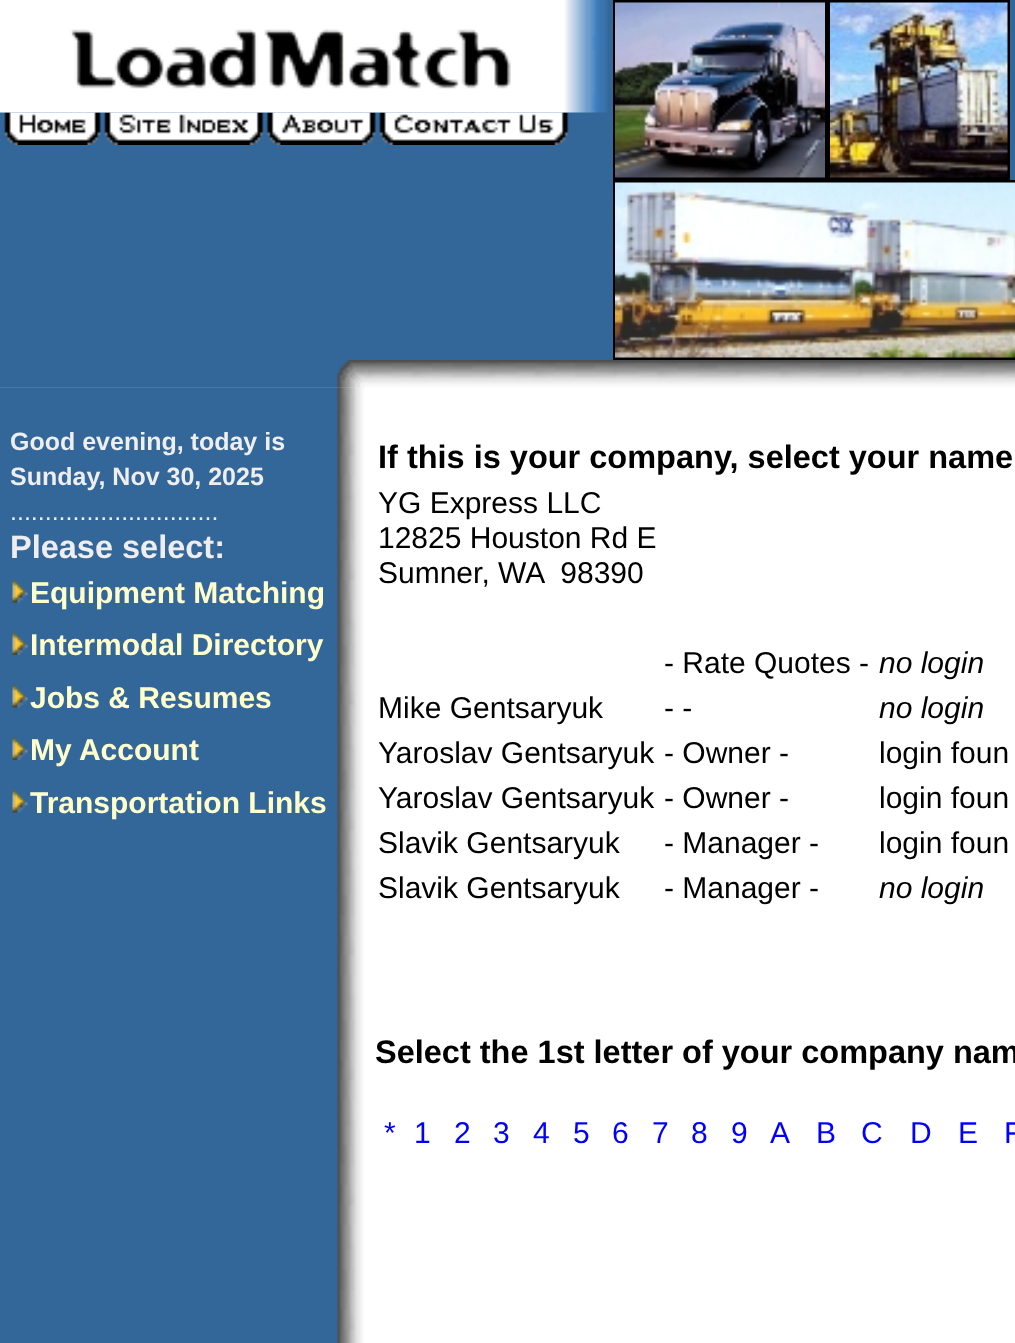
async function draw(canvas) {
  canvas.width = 1015;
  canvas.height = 1343;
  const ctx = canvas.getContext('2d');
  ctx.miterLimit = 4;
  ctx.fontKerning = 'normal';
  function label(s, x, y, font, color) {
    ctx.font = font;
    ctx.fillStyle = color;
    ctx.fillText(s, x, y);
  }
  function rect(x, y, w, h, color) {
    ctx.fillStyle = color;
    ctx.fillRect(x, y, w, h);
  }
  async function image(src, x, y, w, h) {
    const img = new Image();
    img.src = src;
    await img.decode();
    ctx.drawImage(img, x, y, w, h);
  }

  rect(0, 0, 1015, 1343, '#fff');
  await image('assets/img1.png', 0, 387, 364, 956);
  rect(0, 0, 1015, 360, '#369');
  await image('assets/img3.png', 4, 112, 97, 33);
  await image('assets/img4.png', 104, 112, 160, 33);
  await image('assets/img5.png', 266, 112, 110, 33);
  await image('assets/img6.png', 379, 112, 190, 33);
  await image('assets/img2.png', 0, 0, 608, 113);
  ctx.strokeStyle = '#000';
  ctx.lineWidth = 3;
  ctx.strokeRect(614.5, 1.5, 212, 177);
  await image('assets/img7.png', 615, 2, 210, 176);
  ctx.strokeRect(829.5, 1.5, 179, 177);
  await image('assets/img8.png', 830, 2, 178, 176);
  ctx.strokeRect(614.5, 181.5, 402, 177);
  await image('assets/img9.png', 615, 182, 400, 176);
  await image('assets/img10.png', 0, 360, 1015, 28);
  await image('assets/img11.png', 0, 360, 365, 28);
  await image('assets/img12.png', 0, 387, 359, 1);
  label('Good evening, today is', 10, 450, 'bold 25px Liberation Sans', '#eee');
  label('Sunday, Nov 30, 2025', 10, 485, 'bold 25px Liberation Sans', '#eee');
  label('..............................', 10, 520, '25px Liberation Sans', '#eee');
  label('Please select:', 10, 558, 'bold 32.5px Liberation Sans', '#eee');
  await image('assets/img13.png', 12, 580, 16, 23);
  label('Equipment Matching', 30, 603, 'bold 30px Liberation Sans', '#ffc');
  await image('assets/img14.png', 12, 632, 16, 23);
  label('Intermodal Directory', 30, 655, 'bold 30px Liberation Sans', '#ffc');
  await image('assets/img15.png', 12, 685, 16, 23);
  label('Jobs & Resumes', 30, 708, 'bold 30px Liberation Sans', '#ffc');
  await image('assets/img14.png', 12, 737, 16, 23);
  label('My Account', 30, 760, 'bold 30px Liberation Sans', '#ffc');
  await image('assets/img15.png', 12, 790, 16, 23);
  label('Transportation Links', 30, 813, 'bold 30px Liberation Sans', '#ffc');
  label('If this is your company, select your name', 378, 468, 'bold 32.5px Liberation Sans', '#000');
  label('YG Express LLC', 378, 513, '30px Liberation Sans', '#000');
  label('12825 Houston Rd E', 378, 548, '30px Liberation Sans', '#000');
  label('Sumner, WA  98390', 378, 583, '30px Liberation Sans', '#000');
  label('- Rate Quotes -', 664, 673, '30px Liberation Sans', '#000');
  label('no login', 879, 673, 'italic 30px Liberation Sans', '#000');
  label('Mike Gentsaryuk', 378, 718, '30px Liberation Sans', '#000');
  label('- -', 664, 718, '30px Liberation Sans', '#000');
  label('no login', 879, 718, 'italic 30px Liberation Sans', '#000');
  label('Yaroslav Gentsaryuk', 378, 763, '30px Liberation Sans', '#000');
  label('- Owner -', 664, 763, '30px Liberation Sans', '#000');
  label('login foun', 879, 763, '30px Liberation Sans', '#000');
  label('Yaroslav Gentsaryuk', 378, 808, '30px Liberation Sans', '#000');
  label('- Owner -', 664, 808, '30px Liberation Sans', '#000');
  label('login foun', 879, 808, '30px Liberation Sans', '#000');
  label('Slavik Gentsaryuk', 378, 853, '30px Liberation Sans', '#000');
  label('- Manager -', 664, 853, '30px Liberation Sans', '#000');
  label('login foun', 879, 853, '30px Liberation Sans', '#000');
  label('Slavik Gentsaryuk', 378, 898, '30px Liberation Sans', '#000');
  label('- Manager -', 664, 898, '30px Liberation Sans', '#000');
  label('no login', 879, 898, 'italic 30px Liberation Sans', '#000');
  label('Select the 1st letter of your company nam', 375, 1063, 'bold 32.5px Liberation Sans', '#000');
  label('*', 384, 1143, '30px Liberation Sans', '#00f');
  label('1', 414, 1143, '30px Liberation Sans', '#00f');
  label('2', 454, 1143, '30px Liberation Sans', '#00f');
  label('3', 493, 1143, '30px Liberation Sans', '#00f');
  label('4', 533, 1143, '30px Liberation Sans', '#00f');
  label('5', 573, 1143, '30px Liberation Sans', '#00f');
  label('6', 612, 1143, '30px Liberation Sans', '#00f');
  label('7', 652, 1143, '30px Liberation Sans', '#00f');
  label('8', 691, 1143, '30px Liberation Sans', '#00f');
  label('9', 731, 1143, '30px Liberation Sans', '#00f');
  label('A', 770, 1143, '30px Liberation Sans', '#00f');
  label('B', 816, 1143, '30px Liberation Sans', '#00f');
  label('C', 861, 1143, '30px Liberation Sans', '#00f');
  label('D', 910, 1143, '30px Liberation Sans', '#00f');
  label('E', 958, 1143, '30px Liberation Sans', '#00f');
  label('F', 1004, 1143, '30px Liberation Sans', '#00f');
}

draw(document.querySelector('canvas'));
